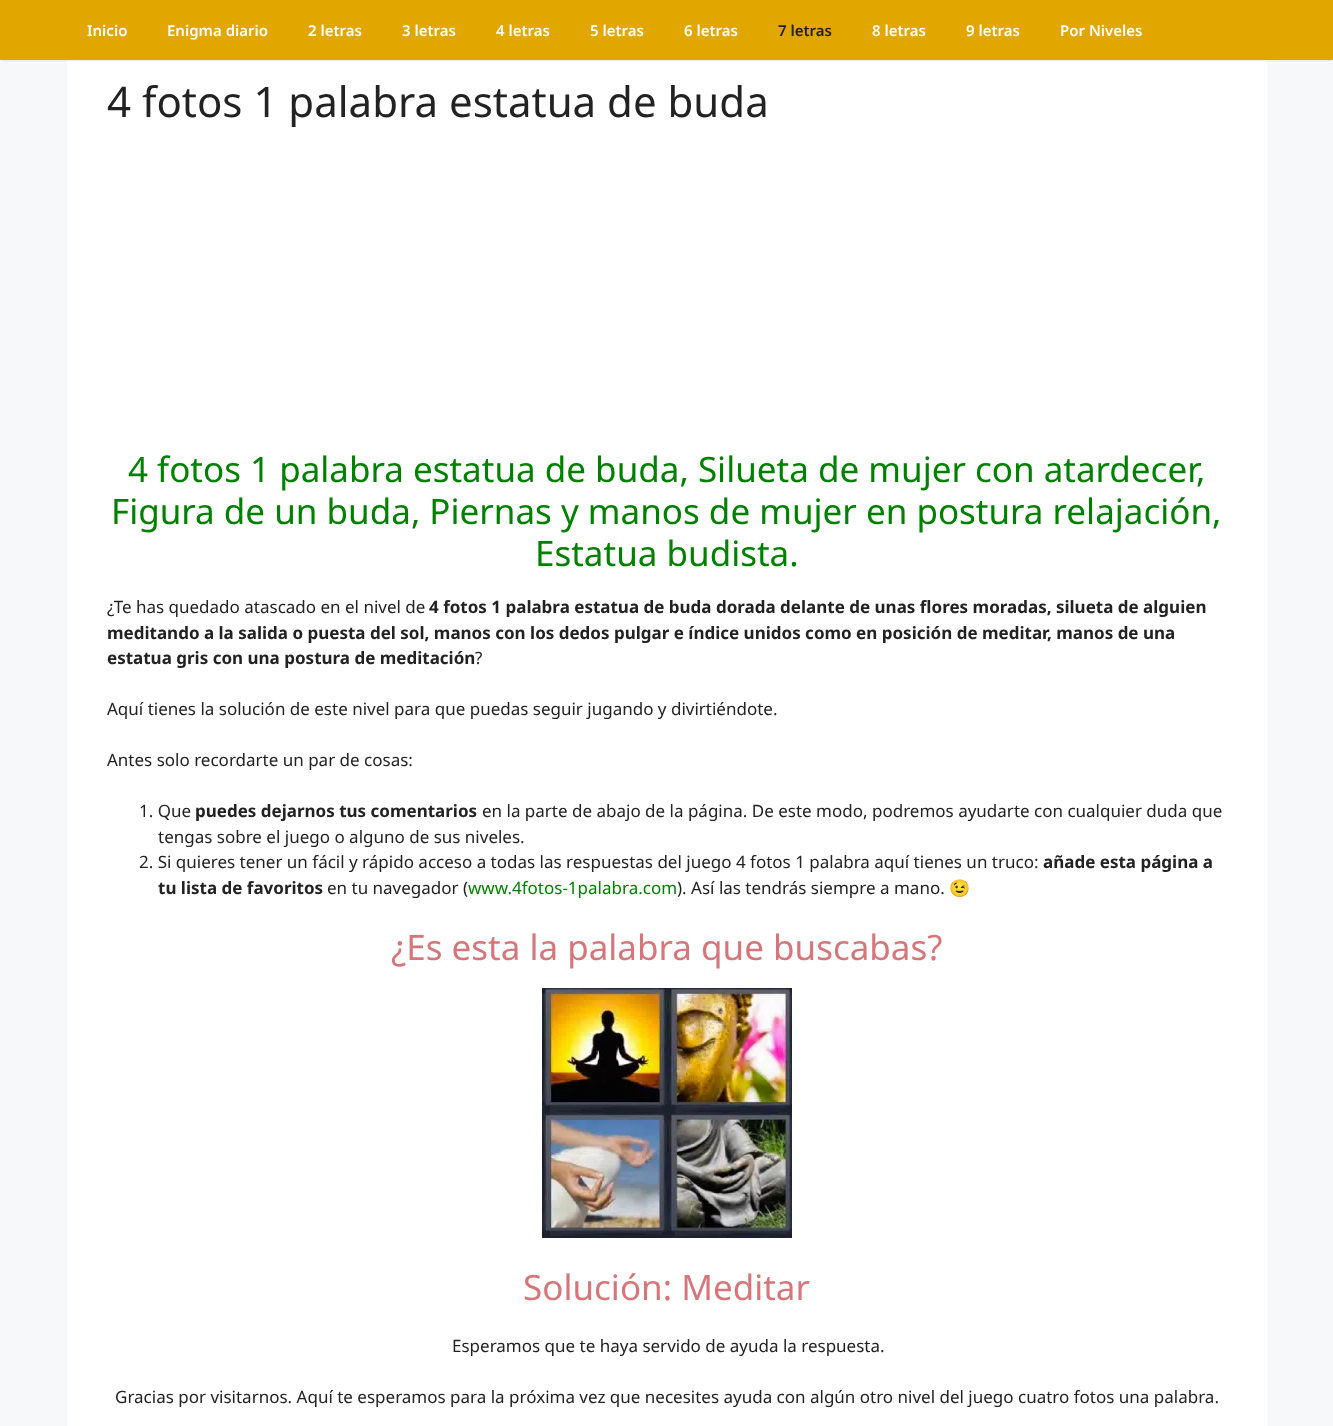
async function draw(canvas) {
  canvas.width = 1333;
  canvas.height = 1426;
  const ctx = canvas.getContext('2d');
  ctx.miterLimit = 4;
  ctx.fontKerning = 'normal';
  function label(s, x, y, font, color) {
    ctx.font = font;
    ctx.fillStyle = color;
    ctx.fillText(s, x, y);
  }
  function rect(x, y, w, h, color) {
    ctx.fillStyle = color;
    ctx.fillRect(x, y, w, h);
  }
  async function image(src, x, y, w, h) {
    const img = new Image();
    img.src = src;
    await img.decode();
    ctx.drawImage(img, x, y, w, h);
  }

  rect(0, 0, 1333, 1426, '#f7f8f9');
  rect(67, 60, 1200, 1366, '#fff');
  ctx.fillStyle = '#00000033';
  ctx.filter = 'blur(1px)';
  ctx.beginPath();
  ctx.rect(2, 4, 1329, 56);
  ctx.fill();
  ctx.filter = 'none';
  rect(0, 0, 1333, 60, '#e2a600');
  label('Inicio', 87, 36, '600 15px Noto Sans', '#fff');
  label('Enigma diario', 167, 36, '600 15px Noto Sans', '#fff');
  label('2 letras', 308, 36, '600 15px Noto Sans', '#fff');
  label('3 letras', 402, 36, '600 15px Noto Sans', '#fff');
  label('4 letras', 496, 36, '600 15px Noto Sans', '#fff');
  label('5 letras', 590, 36, '600 15px Noto Sans', '#fff');
  label('6 letras', 684, 36, '600 15px Noto Sans', '#fff');
  label('7 letras', 778, 36, '600 15px Noto Sans', '#222');
  label('8 letras', 872, 36, '600 15px Noto Sans', '#fff');
  label('9 letras', 966, 36, '600 15px Noto Sans', '#fff');
  label('Por Niveles', 1060, 36, '600 15px Noto Sans', '#fff');
  label('4 fotos 1 palabra estatua de buda', 107, 117, '42px Noto Sans', '#222');
  label('4 fotos 1 palabra estatua de buda, Silueta de mujer con atardecer,', 128, 482, '35px Noto Sans', '#008000');
  label('Figura de un buda, Piernas y manos de mujer en postura relajación,', 111, 524, '35px Noto Sans', '#008000');
  label('Estatua budista.', 535, 566, '35px Noto Sans', '#008000');
  label('¿Te has quedado atascado en el nivel de', 107, 613, '17px Noto Sans', '#222');
  label('4 fotos 1 palabra estatua de buda dorada delante de unas flores moradas, silueta de alguien', 429, 613, 'bold 17px Noto Sans', '#222');
  label('meditando a la salida o puesta del sol, manos con los dedos pulgar e índice unidos como en posición de meditar, manos de una', 107, 639, 'bold 17px Noto Sans', '#222');
  label('estatua gris con una postura de meditación', 107, 664, 'bold 17px Noto Sans', '#222');
  label('?', 475, 664, '17px Noto Sans', '#222');
  label('Aquí tienes la solución de este nivel para que puedas seguir jugando y divirtiéndote.', 107, 715, '17px Noto Sans', '#222');
  label('Antes solo recordarte un par de cosas:', 107, 766, '17px Noto Sans', '#222');
  label('1. Que', 139, 817, '17px Noto Sans', '#222');
  label('puedes dejarnos tus comentarios', 195, 817, 'bold 17px Noto Sans', '#222');
  label('en la parte de abajo de la página. De este modo, podremos ayudarte con cualquier duda que', 482, 817, '17px Noto Sans', '#222');
  label('tengas sobre el juego o alguno de sus niveles.', 158, 843, '17px Noto Sans', '#222');
  label('2. Si quieres tener un fácil y rápido acceso a todas las respuestas del juego 4 fotos 1 palabra aquí tienes un truco:', 139, 868, '17px Noto Sans', '#222');
  label('añade esta página a', 1043, 868, 'bold 17px Noto Sans', '#222');
  label('tu lista de favoritos', 158, 894, 'bold 17px Noto Sans', '#222');
  label('en tu navegador (', 327, 894, '17px Noto Sans', '#222');
  label('www.4fotos-1palabra.com', 468, 894, '17px Noto Sans', '#008000');
  label('). Así las tendrás siempre a mano.', 677, 894, '17px Noto Sans', '#222');
  label('😉', 949, 894, '17px Noto Color Emoji', '#222');
  label('¿Es esta la palabra que buscabas?', 391, 960, '35px Noto Sans', '#d7767a');
  await image('assets/img1.png', 542, 988, 250, 250);
  label('Solución: Meditar', 523, 1300, '35px Noto Sans', '#d7767a');
  label('Esperamos que te haya servido de ayuda la respuesta.', 452, 1352, '17px Noto Sans', '#222');
  label('Gracias por visitarnos. Aquí te esperamos para la próxima vez que necesites ayuda con algún otro nivel del juego cuatro fotos una palabra.', 115, 1403, '17px Noto Sans', '#222');
}

draw(document.querySelector('canvas'));
